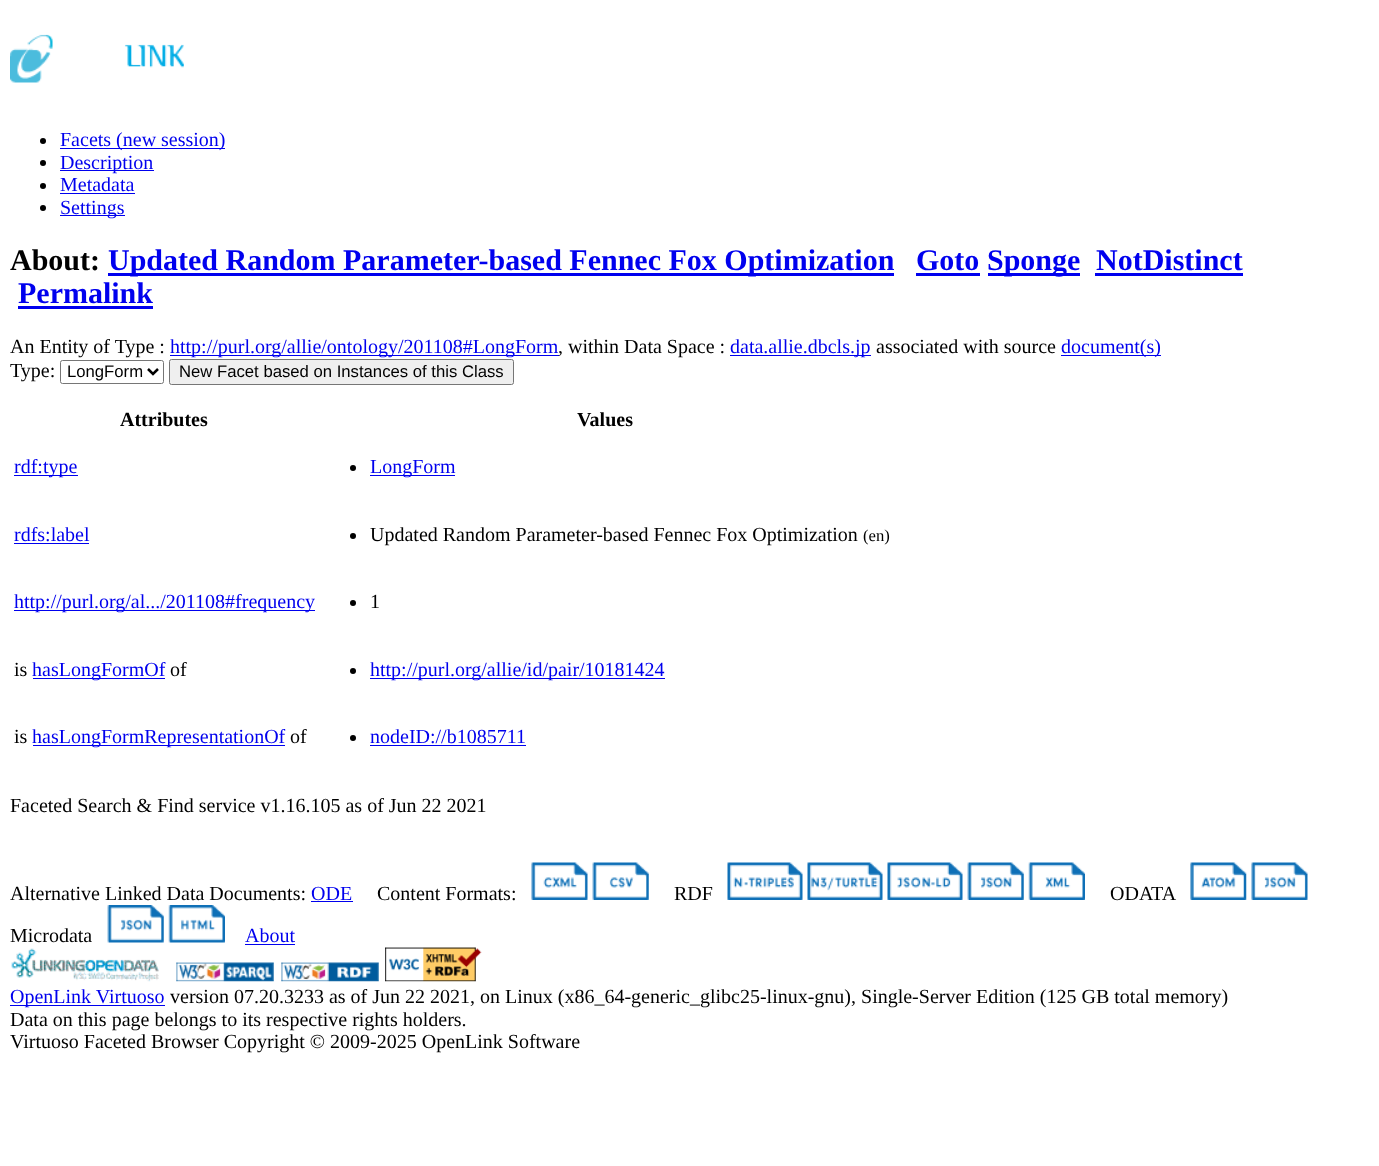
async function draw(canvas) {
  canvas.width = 1379;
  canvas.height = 1166;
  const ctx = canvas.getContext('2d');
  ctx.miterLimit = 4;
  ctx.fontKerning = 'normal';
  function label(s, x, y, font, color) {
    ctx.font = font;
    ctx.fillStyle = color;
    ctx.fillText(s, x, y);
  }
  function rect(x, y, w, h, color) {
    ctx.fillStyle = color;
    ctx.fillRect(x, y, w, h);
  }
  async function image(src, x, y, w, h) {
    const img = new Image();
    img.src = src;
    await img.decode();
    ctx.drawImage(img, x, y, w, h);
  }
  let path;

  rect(0, 0, 1379, 1166, '#fff');
  await image('assets/img1.png', 10, 34, 174, 49);
  ctx.fillStyle = '#000';
  ctx.beginPath();
  ctx.arc(43, 141, 3, 0, 2 * Math.PI);
  ctx.fill();
  rect(60, 148, 165, 1, '#00e');
  label('Facets (new session)', 60, 146, '20px Liberation Serif', '#00e');
  ctx.fillStyle = '#000';
  ctx.beginPath();
  ctx.arc(43, 163, 3, 0, 2 * Math.PI);
  ctx.fill();
  rect(60, 170, 94, 1, '#00e');
  label('Description', 60, 169, '20px Liberation Serif', '#00e');
  ctx.fillStyle = '#000';
  ctx.beginPath();
  ctx.arc(43, 186, 3, 0, 2 * Math.PI);
  ctx.fill();
  label('Metadata', 60, 191, '20px Liberation Serif', '#00e');
  rect(60, 193, 75, 1, '#00e');
  ctx.fillStyle = '#000';
  ctx.beginPath();
  ctx.arc(43, 208, 3, 0, 2 * Math.PI);
  ctx.fill();
  rect(60, 215, 65, 1, '#00e');
  label('Settings', 60, 214, '20px Liberation Serif', '#00e');
  label('About:', 10, 270, 'bold 30px Liberation Serif', '#000');
  rect(108, 273, 786, 3, '#00e');
  label('Updated Random Parameter-based Fennec Fox Optimization', 108, 270, 'bold 30px Liberation Serif', '#00e');
  label('Goto', 916, 270, 'bold 30px Liberation Serif', '#00e');
  rect(916, 273, 64, 3, '#00e');
  rect(988, 273, 92, 3, '#00e');
  label('Sponge', 987, 270, 'bold 30px Liberation Serif', '#00e');
  label('NotDistinct', 1096, 270, 'bold 30px Liberation Serif', '#00e');
  rect(1095, 273, 148, 3, '#00e');
  label('Permalink', 18, 303, 'bold 30px Liberation Serif', '#00e');
  rect(18, 306, 135, 3, '#00e');
  label('An Entity of Type :', 10, 353, '20px Liberation Serif', '#000');
  rect(170, 355, 389, 1, '#00e');
  label('http://purl.org/allie/ontology/201108#LongForm', 170, 353, '20px Liberation Serif', '#00e');
  label(', within Data Space :', 558, 353, '20px Liberation Serif', '#000');
  rect(730, 355, 141, 1, '#00e');
  label('data.allie.dbcls.jp', 730, 353, '20px Liberation Serif', '#00e');
  label('associated with source', 876, 353, '20px Liberation Serif', '#000');
  rect(1061, 355, 100, 1, '#00e');
  label('document(s)', 1061, 353, '20px Liberation Serif', '#00e');
  label('Type:', 10, 377, '20px Liberation Serif', '#000');
  ctx.beginPath();
  ctx.roundRect(60.5, 360.5, 103, 23, 2);
  ctx.strokeStyle = '#767676';
  ctx.stroke();
  path = new Path2D('M148 369L153 374L158 369');
  ctx.strokeStyle = '#000';
  ctx.lineWidth = 2.5;
  ctx.stroke(path);
  label('LongForm', 67, 377, '16.7px Liberation Sans', '#000');
  ctx.fillStyle = '#efefef';
  ctx.beginPath();
  ctx.roundRect(169.5, 359.5, 344, 25, 2);
  ctx.fill();
  ctx.strokeStyle = '#767676';
  ctx.lineWidth = 1;
  ctx.stroke();
  label('New Facet based on Instances of this Class', 179, 377, '16.7px Liberation Sans', '#000');
  label('Attributes', 120, 426, 'bold 20px Liberation Serif', '#000');
  label('Values', 577, 426, 'bold 20px Liberation Serif', '#000');
  rect(14, 475, 64, 1, '#00e');
  label('rdf:type', 14, 473, '20px Liberation Serif', '#00e');
  ctx.fillStyle = '#000';
  ctx.beginPath();
  ctx.arc(353, 468, 3, 0, 2 * Math.PI);
  ctx.fill();
  rect(370, 475, 85, 1, '#00e');
  label('LongForm', 370, 473, '20px Liberation Serif', '#00e');
  label('rdfs:label', 14, 541, '20px Liberation Serif', '#00e');
  rect(14, 543, 75, 1, '#00e');
  ctx.fillStyle = '#000';
  ctx.beginPath();
  ctx.arc(353, 536, 3, 0, 2 * Math.PI);
  ctx.fill();
  label('Updated Random Parameter-based Fennec Fox Optimization', 370, 541, '20px Liberation Serif', '#000');
  label('(en)', 863, 541, '16.7px Liberation Serif', '#000');
  rect(14, 610, 301, 1, '#00e');
  label('http://purl.org/al.../201108#frequency', 14, 608, '20px Liberation Serif', '#00e');
  ctx.fillStyle = '#000';
  ctx.beginPath();
  ctx.arc(353, 603, 3, 0, 2 * Math.PI);
  ctx.fill();
  label('1', 370, 608, '20px Liberation Serif', '#000');
  label('is', 14, 676, '20px Liberation Serif', '#000');
  rect(33, 678, 132, 1, '#00e');
  label('hasLongFormOf', 32, 676, '20px Liberation Serif', '#00e');
  label('of', 170, 676, '20px Liberation Serif', '#000');
  ctx.beginPath();
  ctx.arc(353, 671, 3, 0, 2 * Math.PI);
  ctx.fill();
  rect(370, 678, 295, 1, '#00e');
  label('http://purl.org/allie/id/pair/10181424', 370, 676, '20px Liberation Serif', '#00e');
  label('is', 14, 743, '20px Liberation Serif', '#000');
  rect(33, 745, 252, 1, '#00e');
  label('hasLongFormRepresentationOf', 32, 743, '20px Liberation Serif', '#00e');
  label('of', 290, 743, '20px Liberation Serif', '#000');
  ctx.beginPath();
  ctx.arc(353, 738, 3, 0, 2 * Math.PI);
  ctx.fill();
  label('nodeID://b1085711', 370, 743, '20px Liberation Serif', '#00e');
  rect(370, 745, 156, 1, '#00e');
  label('Faceted Search & Find service v1.16.105 as of Jun 22 2021', 10, 812, '20px Liberation Serif', '#000');
  label('Alternative Linked Data Documents:', 10, 900, '20px Liberation Serif', '#000');
  label('ODE', 311, 900, '20px Liberation Serif', '#00e');
  rect(311, 901, 42, 1, '#00e');
  label('Content Formats:', 377, 900, '20px Liberation Serif', '#000');
  await image('assets/img2.png', 531, 862, 57, 38);
  await image('assets/img3.png', 592, 862, 57, 38);
  label('RDF', 674, 900, '20px Liberation Serif', '#000');
  await image('assets/img4.png', 727, 862, 76, 38);
  await image('assets/img5.png', 807, 862, 76, 38);
  await image('assets/img6.png', 887, 862, 76, 38);
  await image('assets/img7.png', 967, 862, 57, 38);
  await image('assets/img8.png', 1028, 862, 57, 38);
  label('ODATA', 1110, 900, '20px Liberation Serif', '#000');
  await image('assets/img9.png', 1190, 862, 57, 38);
  await image('assets/img10.png', 1251, 862, 57, 38);
  label('Microdata', 10, 942, '20px Liberation Serif', '#000');
  await image('assets/img11.png', 107, 905, 57, 38);
  await image('assets/img12.png', 168, 905, 57, 38);
  label('About', 245, 942, '20px Liberation Serif', '#00e');
  rect(245, 944, 50, 1, '#00e');
  await image('assets/img13.png', 11, 948, 148, 34);
  await image('assets/img14.png', 176, 962, 98, 20);
  await image('assets/img15.png', 281, 962, 98, 20);
  await image('assets/img16.png', 385, 947, 97, 35);
  rect(10, 1005, 155, 1, '#00e');
  label('OpenLink Virtuoso', 10, 1003, '20px Liberation Serif', '#00e');
  label('version 07.20.3233 as of Jun 22 2021, on Linux (x86_64-generic_glibc25-linux-gnu), Single-Server Edition (125 GB total memory)', 170, 1003, '20px Liberation Serif', '#000');
  label('Data on this page belongs to its respective rights holders.', 10, 1026, '20px Liberation Serif', '#000');
  label('Virtuoso Faceted Browser Copyright © 2009-2025 OpenLink Software', 10, 1048, '20px Liberation Serif', '#000');
}

draw(document.querySelector('canvas'));
